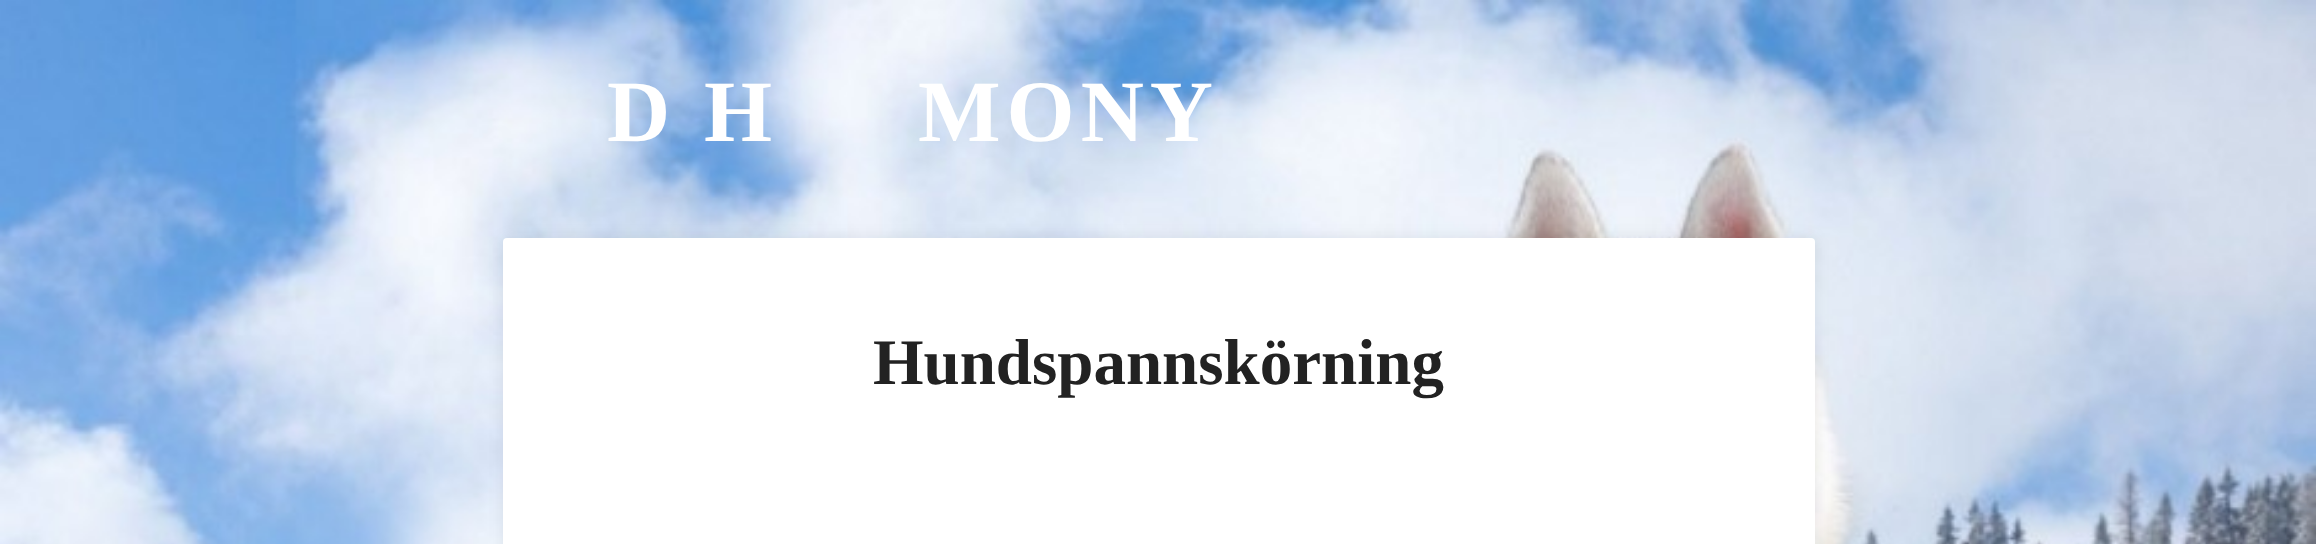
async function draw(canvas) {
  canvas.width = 2316;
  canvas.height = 544;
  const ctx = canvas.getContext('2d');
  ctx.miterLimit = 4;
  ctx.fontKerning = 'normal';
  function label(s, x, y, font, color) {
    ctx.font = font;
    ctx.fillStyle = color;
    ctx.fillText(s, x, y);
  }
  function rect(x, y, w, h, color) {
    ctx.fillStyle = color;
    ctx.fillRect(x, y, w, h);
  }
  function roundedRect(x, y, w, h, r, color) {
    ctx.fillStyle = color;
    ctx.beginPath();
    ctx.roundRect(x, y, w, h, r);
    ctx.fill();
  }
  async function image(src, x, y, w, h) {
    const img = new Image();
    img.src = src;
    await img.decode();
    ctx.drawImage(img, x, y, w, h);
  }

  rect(0, 0, 2316, 544, '#fff');
  await image('assets/img1.png', 0, 0, 2316, 544);
  ctx.letterSpacing = '6px';
  label('D H', 607, 141, 'bold 87.5px Liberation Serif', '#fff');
  label('MONY', 918, 141, 'bold 87.5px Liberation Serif', '#fff');
  ctx.fillStyle = '#00000014';
  ctx.filter = 'blur(7.5px)';
  ctx.beginPath();
  ctx.roundRect(503, 238, 1312, 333, 4);
  ctx.fill();
  ctx.filter = 'none';
  roundedRect(503, 238, 1312, 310, 4, '#fff');
  ctx.letterSpacing = '0px';
  label('Hundspannskörning', 873, 384, 'bold 65px Liberation Serif', '#222');
}

draw(document.querySelector('canvas'));
